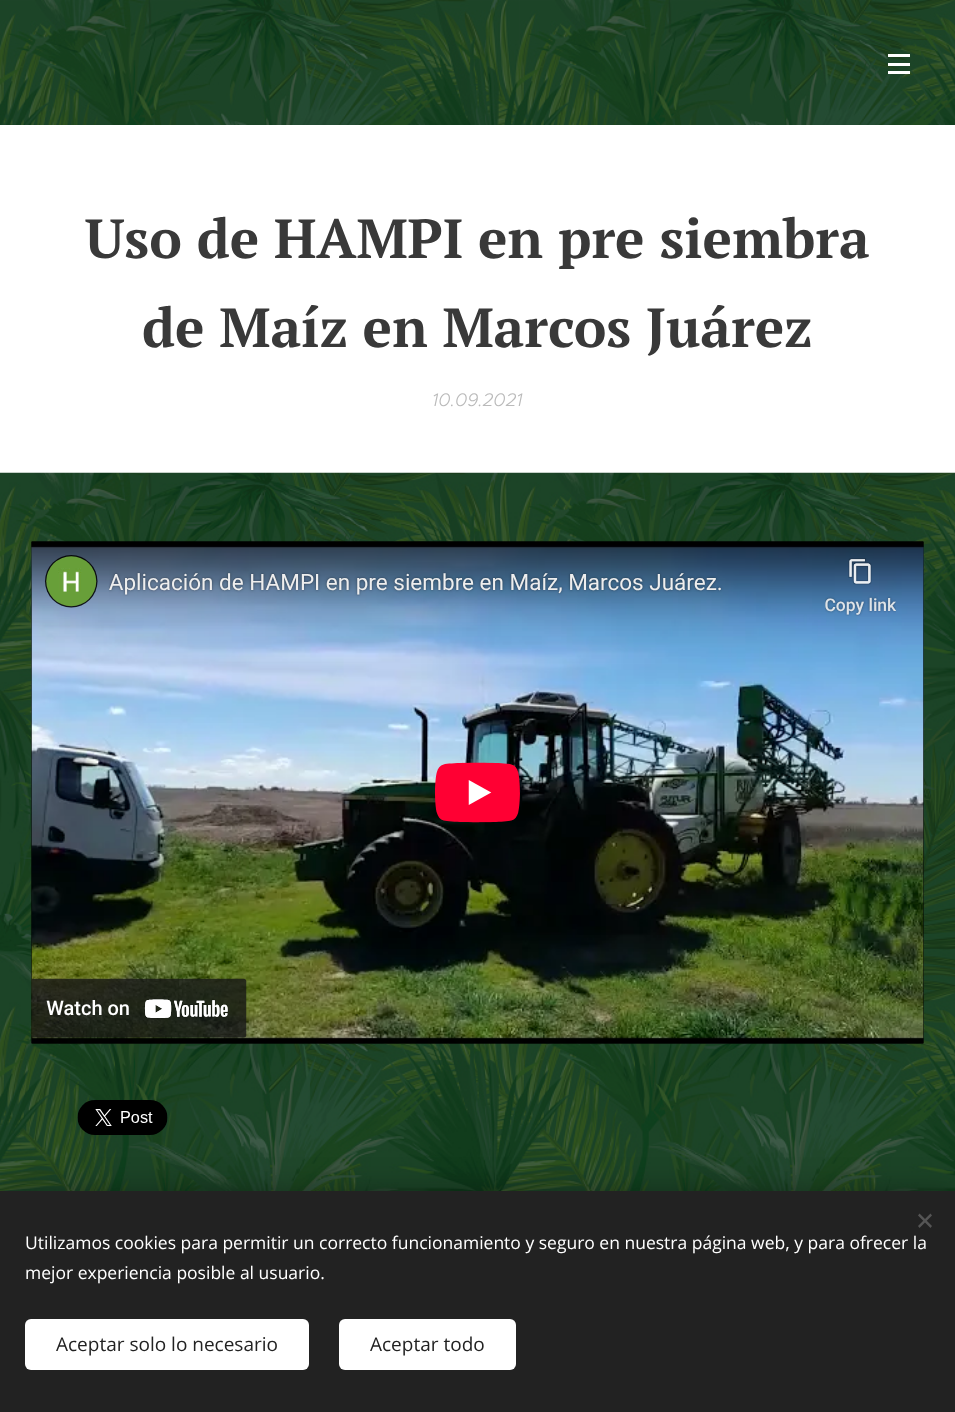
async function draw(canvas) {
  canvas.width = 955;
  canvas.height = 1412;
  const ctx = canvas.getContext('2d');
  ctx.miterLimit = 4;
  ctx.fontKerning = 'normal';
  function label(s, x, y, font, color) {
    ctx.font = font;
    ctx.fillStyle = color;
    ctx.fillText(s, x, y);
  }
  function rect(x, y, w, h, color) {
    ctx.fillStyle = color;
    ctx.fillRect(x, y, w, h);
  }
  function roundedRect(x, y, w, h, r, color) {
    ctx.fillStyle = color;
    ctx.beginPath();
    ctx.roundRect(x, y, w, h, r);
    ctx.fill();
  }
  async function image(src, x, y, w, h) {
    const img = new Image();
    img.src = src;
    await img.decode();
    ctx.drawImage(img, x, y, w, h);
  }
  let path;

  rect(0, 0, 955, 1412, '#fff');
  await image('assets/img1.png', 0, 0, 955, 125);
  rect(888, 63, 22, 3, '#fff');
  rect(888, 54, 22, 3, '#fff');
  rect(888, 71, 22, 3, '#fff');
  label('Uso de HAMPI en pre siembra', 85, 258, 'bold 55px PT Serif', '#393939');
  label('de Maíz en Marcos Juárez', 142, 347, 'bold 55px PT Serif', '#393939');
  label('10.09.2021', 432, 406, 'italic 300 18.25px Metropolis', '#bababa');
  await image('assets/img2.png', 0, 472, 955, 719);
  await image('assets/img3.png', 31, 541, 893, 503);
  await image('assets/img4.png', 77, 1100, 91, 35);
  ctx.fillStyle = '#00000054';
  ctx.filter = 'blur(15.5px)';
  ctx.beginPath();
  ctx.rect(0, 1191, 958, 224);
  ctx.fill();
  ctx.filter = 'none';
  rect(0, 1191, 955, 221, '#222');
  ctx.fillStyle = '#555';
  path = new Path2D('M918 1226L930.5 1213.5L932 1215.5L919.5 1228Z');
  ctx.fill(path);
  path = new Path2D('M919.5 1213.5L932 1226L930.5 1228L918 1215.5Z');
  ctx.fill(path);
  label('Utilizamos cookies para permitir un correcto funcionamiento y seguro en nuestra página web, y para ofrecer la', 25, 1249, '17.5px Open Sans', '#fff');
  label('mejor experiencia posible al usuario.', 25, 1279, '17.5px Open Sans', '#fff');
  roundedRect(25, 1319, 284, 51, 6, '#fff');
  label('Aceptar solo lo necesario', 56, 1351, '19px Open Sans', '#222');
  roundedRect(339, 1319, 177, 51, 6, '#fff');
  label('Aceptar todo', 370, 1351, '19px Open Sans', '#222');
}

draw(document.querySelector('canvas'));
